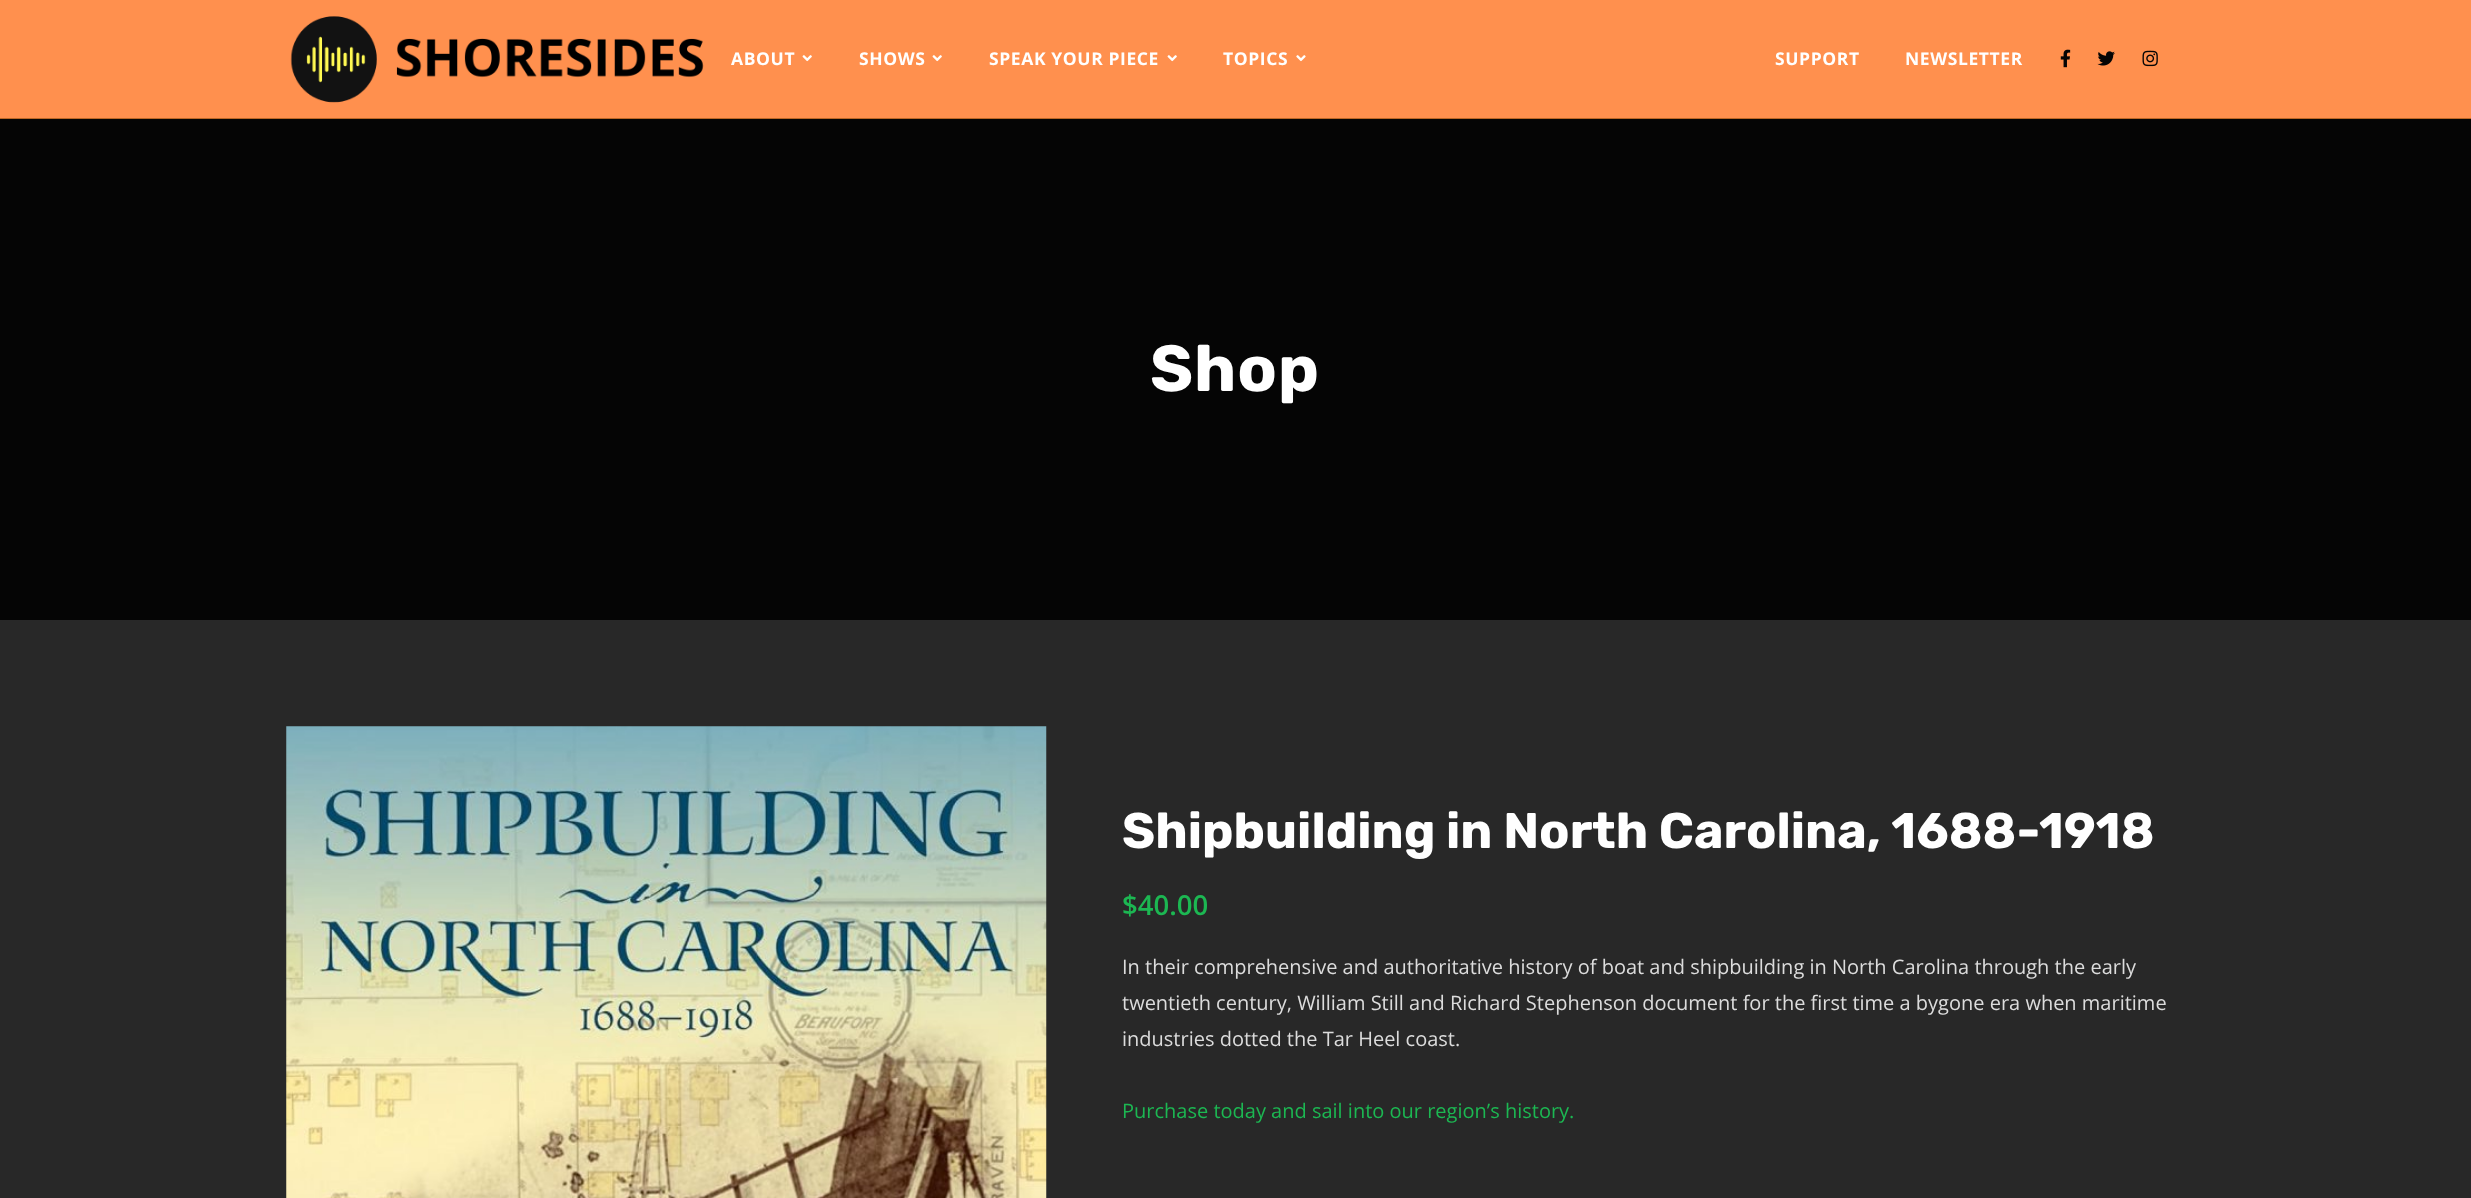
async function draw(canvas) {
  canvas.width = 2471;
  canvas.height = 1198;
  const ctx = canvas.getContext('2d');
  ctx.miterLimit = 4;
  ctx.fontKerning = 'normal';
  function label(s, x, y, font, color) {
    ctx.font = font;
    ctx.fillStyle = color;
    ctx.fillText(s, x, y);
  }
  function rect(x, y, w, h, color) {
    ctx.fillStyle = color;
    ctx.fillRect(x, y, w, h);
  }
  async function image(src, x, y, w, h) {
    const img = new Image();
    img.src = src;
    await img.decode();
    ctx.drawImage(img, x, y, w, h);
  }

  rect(0, 0, 2471, 1198, '#282828');
  rect(0, 0, 2471, 118, '#ff904e');
  await image('assets/img1.png', 290, 16, 414, 87);
  ctx.letterSpacing = '0.6px';
  label('ABOUT', 731, 65, 'bold 17.5px Open Sans', '#fff');
  await image('assets/img2.png', 802, 55, 10, 7);
  label('SHOWS', 859, 65, 'bold 17.5px Open Sans', '#fff');
  await image('assets/img2.png', 932, 55, 10, 7);
  label('SPEAK YOUR PIECE', 989, 65, 'bold 17.5px Open Sans', '#fff');
  await image('assets/img2.png', 1167, 55, 10, 7);
  label('TOPICS', 1223, 65, 'bold 17.5px Open Sans', '#fff');
  await image('assets/img3.png', 1296, 55, 10, 7);
  label('SUPPORT', 1775, 65, 'bold 17.5px Open Sans', '#fff');
  label('NEWSLETTER', 1905, 65, 'bold 17.5px Open Sans', '#fff');
  await image('assets/img4.png', 2060, 49, 11, 19);
  await image('assets/img5.png', 2097, 51, 18, 15);
  await image('assets/img6.png', 2142, 50, 16, 17);
  rect(0, 118, 2471, 1, '#bc6725');
  rect(0, 119, 2471, 501, '#050505');
  ctx.letterSpacing = '1px';
  label('Shop', 1150, 391, 'bold 65px Rubik', '#fff');
  await image('assets/img7.png', 286, 726, 761, 472);
  ctx.letterSpacing = '0px';
  label('Shipbuilding in North Carolina, 1688-1918', 1122, 848, 'bold 50px Rubik', '#fff');
  label('$40.00', 1122, 915, '600 27.5px Open Sans', '#1cb752');
  label('In their comprehensive and authoritative history of boat and shipbuilding in North Carolina through the early', 1122, 974, '20px Open Sans', '#dcdcdc');
  label('twentieth century, William Still and Richard Stephenson document for the first time a bygone era when maritime', 1122, 1010, '20px Open Sans', '#dcdcdc');
  label('industries dotted the Tar Heel coast.', 1122, 1046, '20px Open Sans', '#dcdcdc');
  label('Purchase today and sail into our region’s history.', 1122, 1118, '20px Open Sans', '#1cb752');
}

draw(document.querySelector('canvas'));
